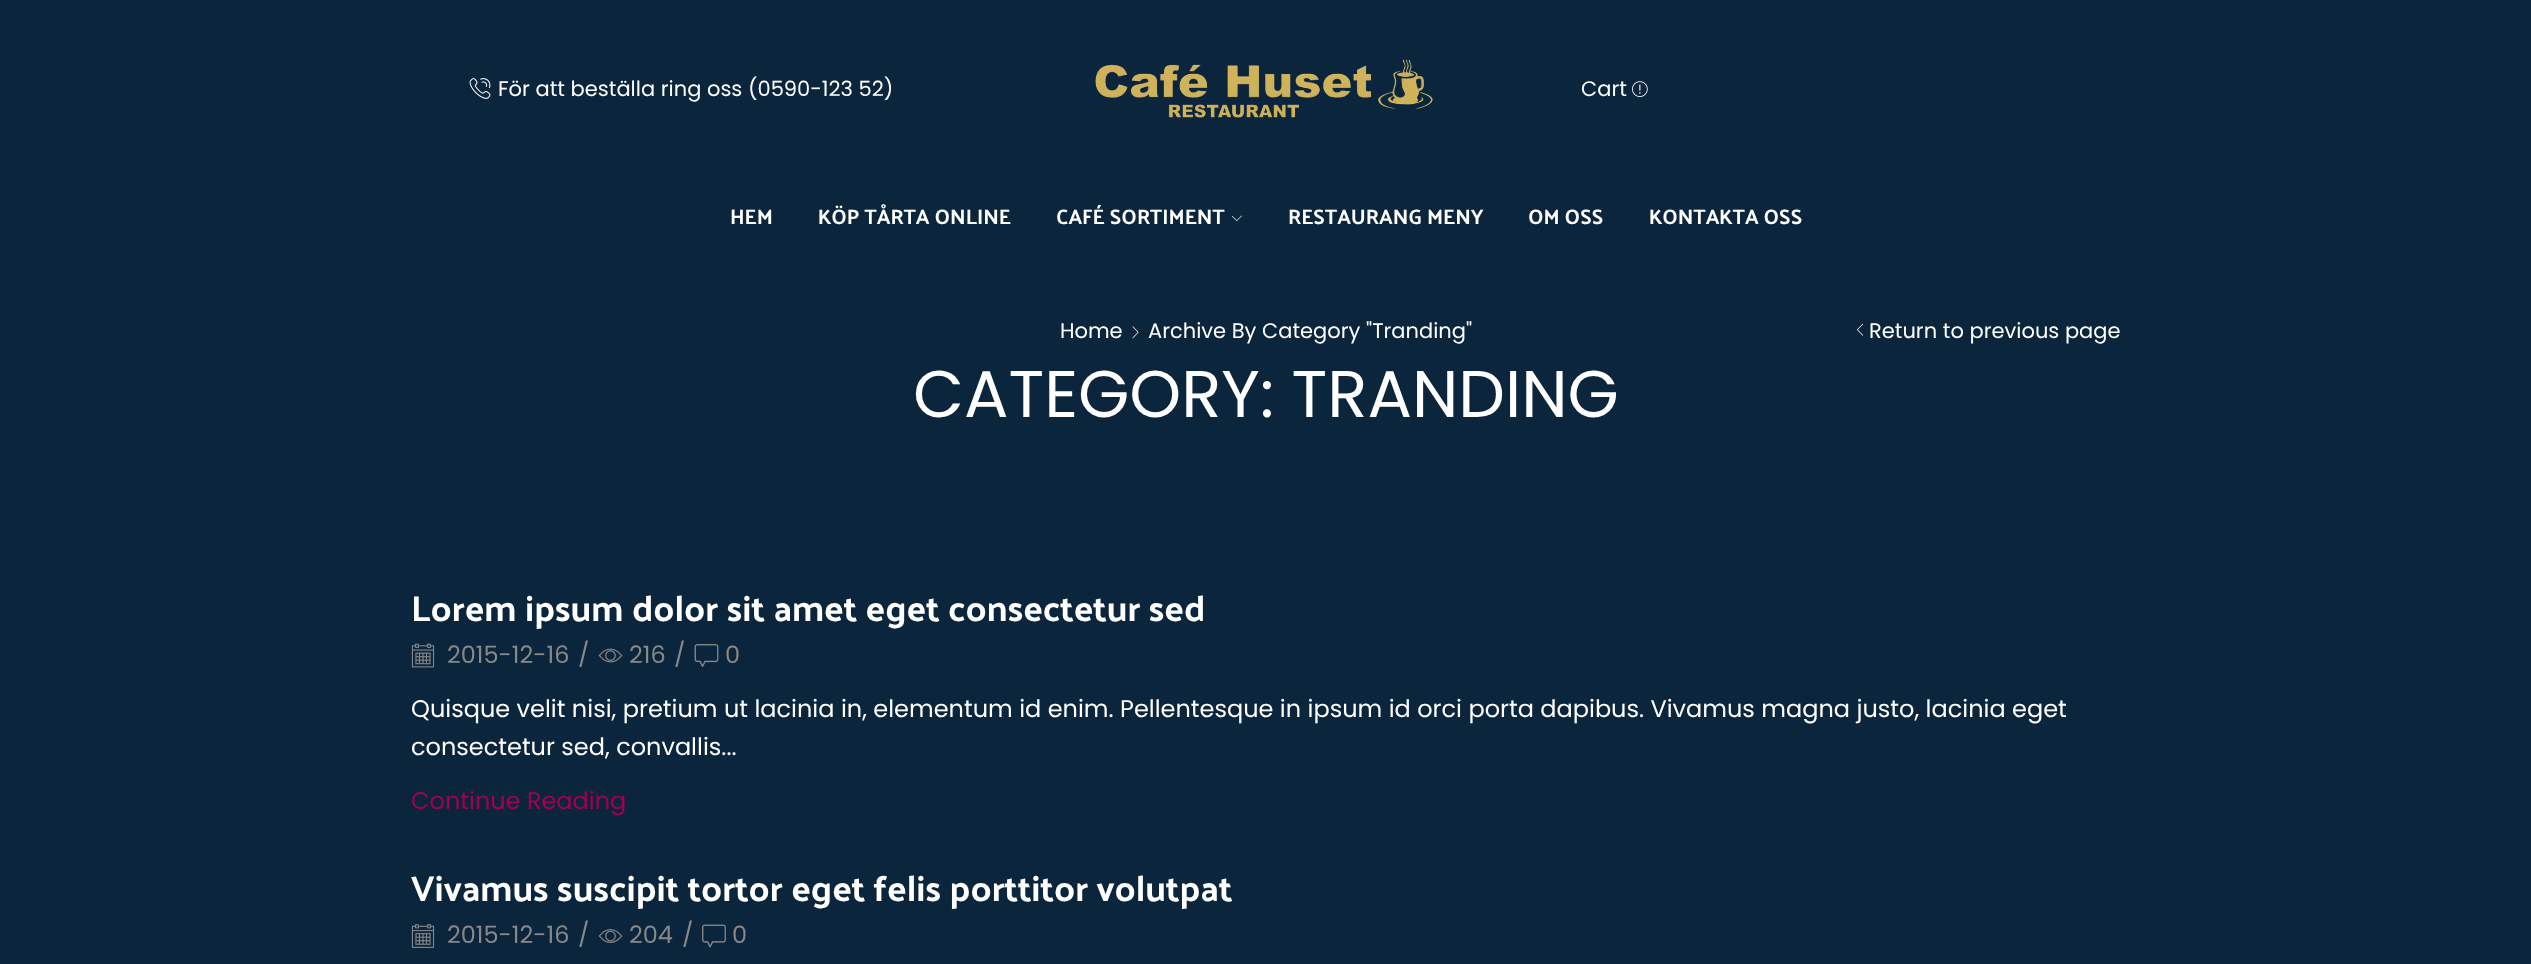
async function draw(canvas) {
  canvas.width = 2531;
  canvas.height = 964;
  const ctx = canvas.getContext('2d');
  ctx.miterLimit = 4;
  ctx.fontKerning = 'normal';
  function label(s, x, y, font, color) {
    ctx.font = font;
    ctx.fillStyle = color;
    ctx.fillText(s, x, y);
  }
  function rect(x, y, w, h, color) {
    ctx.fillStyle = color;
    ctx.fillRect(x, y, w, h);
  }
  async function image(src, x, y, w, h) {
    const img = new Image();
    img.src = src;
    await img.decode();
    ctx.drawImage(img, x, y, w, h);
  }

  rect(0, 0, 2531, 964, '#0b253c');
  await image('assets/img1.png', 469, 78, 22, 21);
  label('För att beställa ring oss (0590-123 52)', 498, 96, '21px Poppins', '#fff');
  await image('assets/img2.png', 1095, 59, 338, 59);
  label('Cart', 1581, 96, '21px Poppins', '#fff');
  await image('assets/img3.png', 1632, 81, 16, 16);
  label('HEM', 730, 224, 'bold 21px Palanquin', '#fff');
  label('KÖP TÅRTA ONLINE', 818, 224, 'bold 21px Palanquin', '#fff');
  label('CAFÉ SORTIMENT', 1056, 224, 'bold 21px Palanquin', '#fff');
  await image('assets/img4.png', 1232, 215, 10, 6);
  label('RESTAURANG MENY', 1288, 224, 'bold 21px Palanquin', '#fff');
  label('OM OSS', 1528, 224, 'bold 21px Palanquin', '#fff');
  label('KONTAKTA OSS', 1649, 224, 'bold 21px Palanquin', '#fff');
  label('Home', 1060, 338, '21px Poppins', '#fff');
  await image('assets/img5.png', 1132, 326, 7, 13);
  label('Archive By Category "Tranding"', 1148, 338, '21px Poppins', '#fff');
  await image('assets/img6.png', 1857, 323, 7, 13);
  label('Return to previous page', 1869, 338, '21px Poppins', '#fff');
  label('CATEGORY: TRANDING', 913, 417, '66px Poppins', '#fff');
  label('Lorem ipsum dolor sit amet eget consectetur sed', 411, 621, 'bold 36px Palanquin', '#fff');
  await image('assets/img7.png', 411, 643, 24, 25);
  label('2015-12-16', 447, 663, '24px Poppins', '#888');
  label('/', 578, 663, '24px Poppins', '#888');
  await image('assets/img8.png', 598, 648, 25, 15);
  label('216', 629, 663, '24px Poppins', '#888');
  label('/', 674, 663, '24px Poppins', '#888');
  await image('assets/img9.png', 694, 644, 25, 23);
  label('0', 725, 663, '24px Poppins', '#888');
  label('Quisque velit nisi, pretium ut lacinia in, elementum id enim. Pellentesque in ipsum id orci porta dapibus. Vivamus magna justo, lacinia eget', 411, 717, '24px Poppins', '#fff');
  label('consectetur sed, convallis...', 411, 755, '24px Poppins', '#fff');
  label('Continue Reading', 411, 809, '24px Poppins', '#a4004f');
  label('Vivamus suscipit tortor eget felis porttitor volutpat', 411, 901, 'bold 36px Palanquin', '#fff');
  await image('assets/img10.png', 411, 924, 24, 24);
  label('2015-12-16', 447, 943, '24px Poppins', '#888');
  label('/', 578, 943, '24px Poppins', '#888');
  await image('assets/img11.png', 598, 929, 25, 14);
  label('204', 629, 943, '24px Poppins', '#888');
  label('/', 682, 943, '24px Poppins', '#888');
  await image('assets/img12.png', 702, 924, 24, 24);
  label('0', 732, 943, '24px Poppins', '#888');
}

draw(document.querySelector('canvas'));
